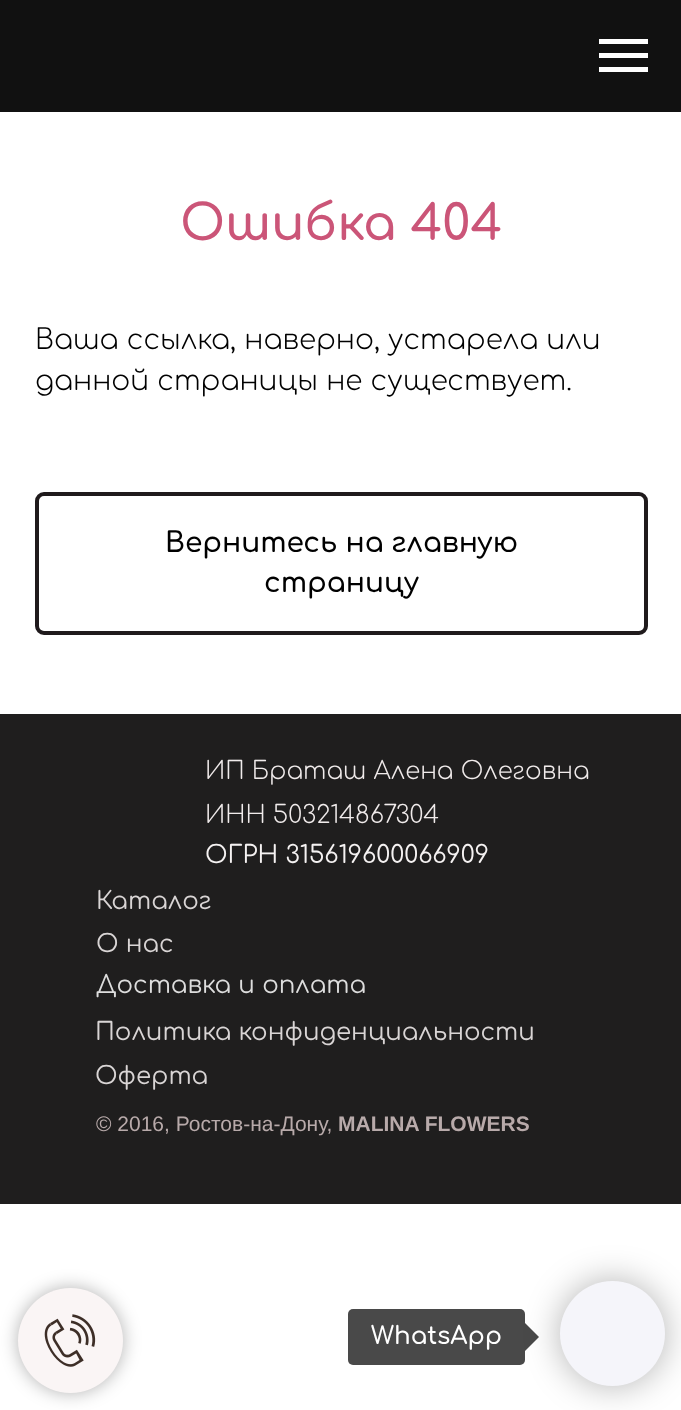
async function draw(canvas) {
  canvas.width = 681;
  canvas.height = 1410;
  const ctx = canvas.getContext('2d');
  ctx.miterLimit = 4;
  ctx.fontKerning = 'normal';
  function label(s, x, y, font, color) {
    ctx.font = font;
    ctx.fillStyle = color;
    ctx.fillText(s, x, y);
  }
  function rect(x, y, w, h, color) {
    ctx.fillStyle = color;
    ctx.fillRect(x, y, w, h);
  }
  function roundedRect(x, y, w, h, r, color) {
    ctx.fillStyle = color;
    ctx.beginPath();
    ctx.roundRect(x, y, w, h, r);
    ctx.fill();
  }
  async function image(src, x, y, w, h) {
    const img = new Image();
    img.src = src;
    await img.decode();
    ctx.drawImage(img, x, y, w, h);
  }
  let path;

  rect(0, 0, 681, 1410, '#fff');
  label('Ошибка 404', 180, 240, '600 49px Comfortaa', '#cb5578');
  label('Ваша ссылка, наверно, устарела или', 35, 349, '300 28px Comfortaa', '#000');
  label('данной страницы не существует.', 35, 390, '300 28px Comfortaa', '#000');
  ctx.beginPath();
  ctx.roundRect(37, 494, 609, 139, 7);
  ctx.strokeStyle = '#1f1a1c';
  ctx.lineWidth = 4;
  ctx.stroke();
  label('Вернитесь на главную', 165, 552, '600 28px Comfortaa', '#000');
  label('страницу', 264, 592, '600 28px Comfortaa', '#000');
  rect(0, 714, 681, 490, '#1f1e1e');
  label('ИП Браташ Алена Олеговна', 205, 779, '300 24.5px Comfortaa', '#f0ebeb');
  label('ИНН 503214867304', 205, 823, '300 24.5px Comfortaa', '#f0ebeb');
  label('ОГРН 315619600066909', 205, 863, '24.5px Comfortaa', '#f5f2f2');
  label('Каталог', 96, 909, '24.5px Comfortaa', '#d9d5d5');
  label('О нас', 96, 952, '24.5px Comfortaa', '#d9d5d5');
  label('Доставка и оплата', 96, 993, '24.5px Comfortaa', '#ddd');
  label('Политика конфиденциальности', 95, 1040, '24.5px Comfortaa', '#d9d5d5');
  label('Оферта', 95, 1084, '24.5px Comfortaa', '#d9d5d5');
  label('© 2016, Ростов-на-Дону,', 96, 1131, '21px Liberation Sans', '#b8aaaa');
  label('MALINA FLOWERS', 338, 1131, 'bold 21px Liberation Sans', '#b8aaaa');
  rect(0, 0, 681, 112, '#111');
  rect(599, 39, 49, 5, '#fff');
  rect(599, 53, 49, 5, '#fff');
  rect(599, 67, 49, 5, '#fff');
  ctx.fillStyle = '#0000004d';
  ctx.filter = 'blur(9px)';
  ctx.beginPath();
  ctx.roundRect(18, 1288, 105, 105, 52.5);
  ctx.fill();
  ctx.filter = 'none';
  ctx.fillStyle = '#faf5f5';
  ctx.beginPath();
  ctx.arc(70.5, 1340.5, 52.5, 0, 2 * Math.PI);
  ctx.fill();
  await image('assets/img1.png', 44, 1314, 52, 53);
  roundedRect(348, 1309, 177, 56, 5, '#494949');
  label('WhatsApp', 371, 1344, '600 24.5px Comfortaa', '#fff');
  ctx.fillStyle = '#494949';
  path = new Path2D('M525 1351V1323L539 1337Z');
  ctx.fill(path);
  ctx.fillStyle = '#0000004d';
  ctx.filter = 'blur(17.5px)';
  ctx.beginPath();
  ctx.roundRect(560, 1281, 105, 105, 52.5);
  ctx.fill();
  ctx.filter = 'none';
  ctx.fillStyle = '#f5f5fa';
  ctx.beginPath();
  ctx.arc(612.5, 1333.5, 52.5, 0, 2 * Math.PI);
  ctx.fill();
}

draw(document.querySelector('canvas'));
